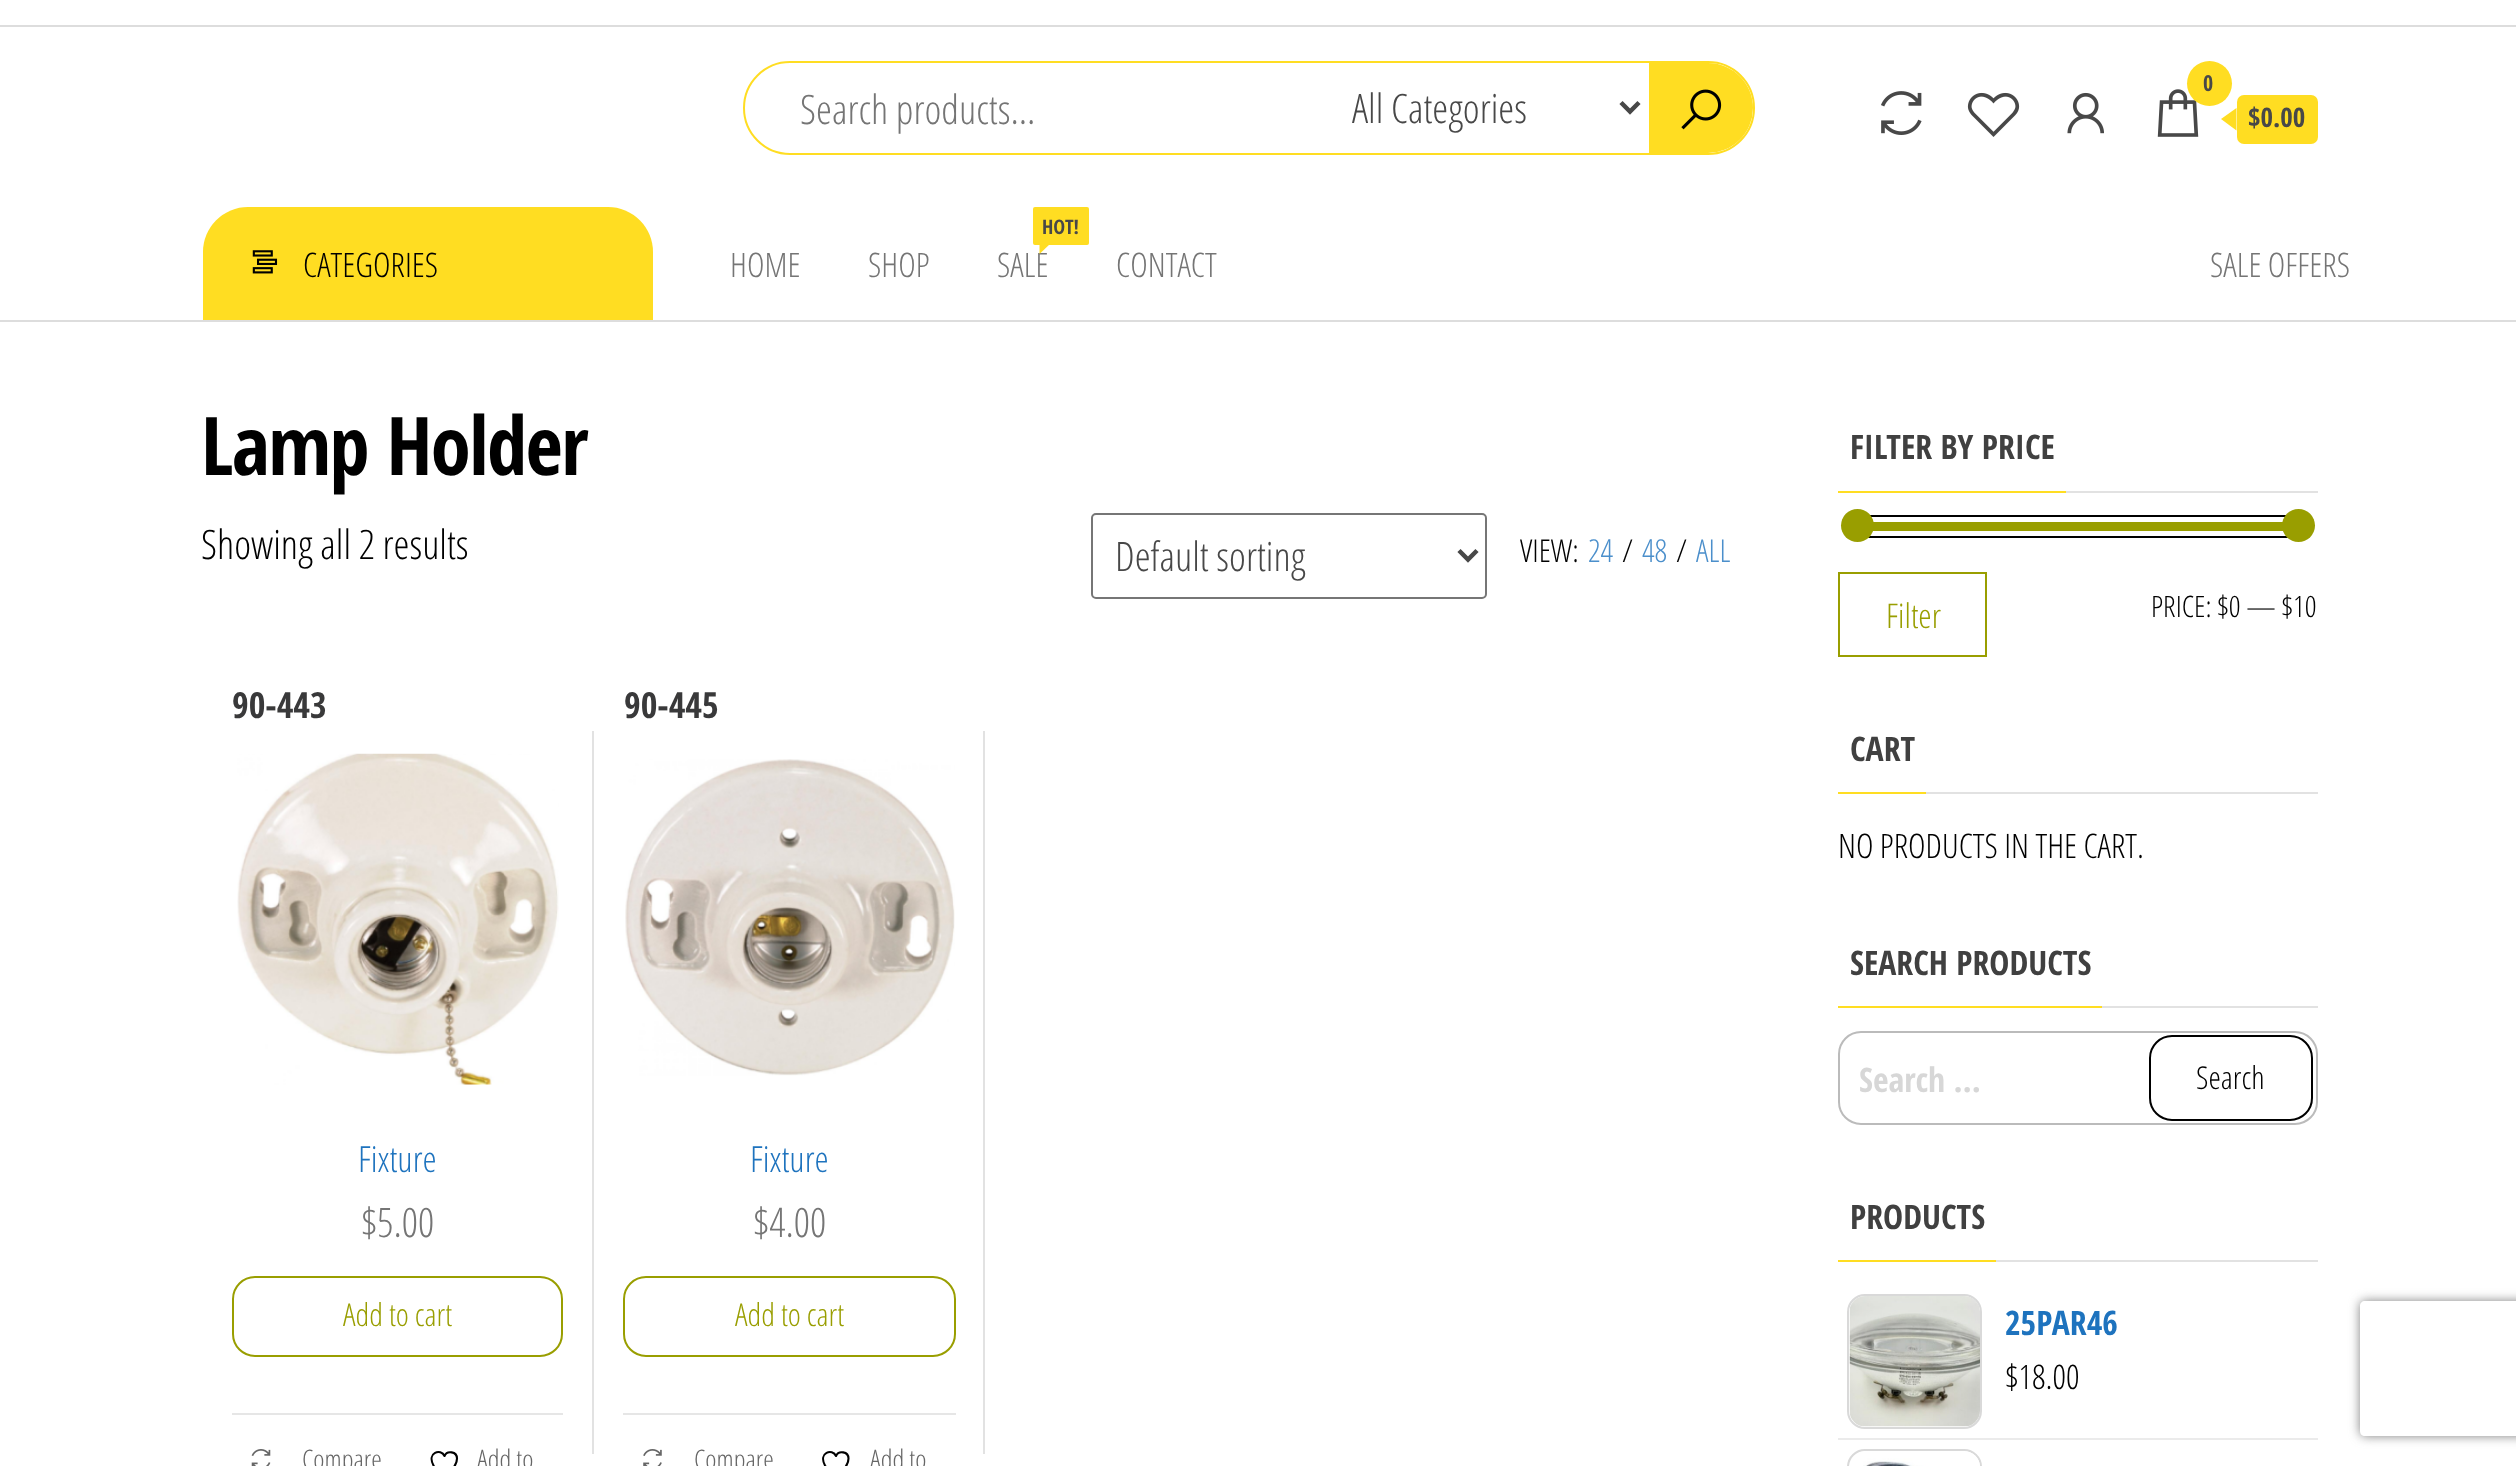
async function draw(canvas) {
  canvas.width = 2516;
  canvas.height = 1466;
  const ctx = canvas.getContext('2d');
  ctx.miterLimit = 4;
  ctx.fontKerning = 'normal';
  function label(s, x, y, font, color) {
    ctx.font = font;
    ctx.fillStyle = color;
    ctx.fillText(s, x, y);
  }
  function rect(x, y, w, h, color) {
    ctx.fillStyle = color;
    ctx.fillRect(x, y, w, h);
  }
  function roundedRect(x, y, w, h, r, color) {
    ctx.fillStyle = color;
    ctx.beginPath();
    ctx.roundRect(x, y, w, h, r);
    ctx.fill();
  }
  async function image(src, x, y, w, h) {
    const img = new Image();
    img.src = src;
    await img.decode();
    ctx.drawImage(img, x, y, w, h);
  }
  let path;

  rect(0, 0, 2516, 1466, '#fff');
  rect(0, 25, 2516, 2, '#ddd');
  ctx.beginPath();
  ctx.roundRect(744, 62, 1010, 92, 46);
  ctx.strokeStyle = '#fd2';
  ctx.lineWidth = 2;
  ctx.stroke();
  label('Search products...', 800, 124, '300 40.5px Open Sans Condensed', '#757575');
  path = new Path2D('M1621 102.5L1630 111.5L1639 102.5');
  ctx.strokeStyle = '#484848';
  ctx.lineWidth = 4.5;
  ctx.stroke(path);
  label('All Categories', 1352, 123, '300 40.5px Open Sans Condensed', '#484848');
  ctx.fillStyle = '#fd2';
  ctx.beginPath();
  ctx.roundRect(1649, 63, 104, 90, [0, 45, 45, 0]);
  ctx.fill();
  await image('assets/img1.png', 1681, 89, 41, 41);
  await image('assets/img2.png', 1881, 91, 41, 44);
  await image('assets/img3.png', 1967, 92, 53, 45);
  await image('assets/img4.png', 2067, 92, 37, 42);
  await image('assets/img5.png', 2157, 89, 42, 48);
  ctx.beginPath();
  ctx.arc(2209.5, 83.5, 22.5, 0, 2 * Math.PI);
  ctx.fill();
  label('0', 2203, 91, 'bold 22px Open Sans Condensed', '#484848');
  roundedRect(2237, 95, 81, 49, 7, '#fd2');
  path = new Path2D('M2236.5 108V130.5L2221 119Z');
  ctx.fill(path);
  label('$0.00', 2248, 127, 'bold 27px Open Sans Condensed', '#484848');
  rect(0, 320, 2516, 2, '#ddd');
  ctx.fillStyle = '#fd2';
  ctx.beginPath();
  ctx.roundRect(203, 207, 450, 113, [45, 45, 0, 0]);
  ctx.fill();
  await image('assets/img6.png', 252, 250, 26, 24);
  label('CATEGORIES', 303, 277, '300 33.75px Open Sans Condensed', '#000');
  label('HOME', 730, 277, '300 33.75px Open Sans Condensed', '#757575');
  label('SHOP', 868, 277, '300 33.75px Open Sans Condensed', '#757575');
  roundedRect(1033, 207, 56, 38, 2, '#fd2');
  label('HOT!', 1042, 234, 'bold 20px Open Sans Condensed', '#484848');
  label('SALE', 997, 277, '300 33.75px Open Sans Condensed', '#757575');
  ctx.fillStyle = '#fd2';
  path = new Path2D('M1039.5 243H1051L1039.5 254Z');
  ctx.fill(path);
  label('CONTACT', 1116, 277, '300 33.75px Open Sans Condensed', '#757575');
  label('SALE OFFERS', 2210, 277, '300 33.75px Open Sans Condensed', '#757575');
  ctx.letterSpacing = '-1.6px';
  label('Lamp Holder', 201, 475, 'bold 81px Open Sans Condensed', '#000');
  ctx.letterSpacing = '0px';
  label('Showing all 2 results', 201, 559, '300 40.5px Open Sans Condensed', '#000');
  ctx.beginPath();
  ctx.roundRect(1092, 514, 394, 84, 4);
  ctx.strokeStyle = '#767676';
  ctx.lineWidth = 2;
  ctx.stroke();
  path = new Path2D('M1459 550.5L1468 559.5L1477 550.5');
  ctx.strokeStyle = '#484848';
  ctx.lineWidth = 4.5;
  ctx.stroke(path);
  label('Default sorting', 1115, 571, '300 40.5px Open Sans Condensed', '#484848');
  label('VIEW:', 1520, 562, '300 31.5px Open Sans Condensed', '#000');
  label('24', 1588, 562, '300 31.5px Open Sans Condensed', '#4b8fcb');
  label('/', 1622, 562, '300 31.5px Open Sans Condensed', '#000');
  label('48', 1642, 562, '300 31.5px Open Sans Condensed', '#4b8fcb');
  label('/', 1676, 562, '300 31.5px Open Sans Condensed', '#000');
  label('ALL', 1696, 562, '300 31.5px Open Sans Condensed', '#4b8fcb');
  label('90-443', 232, 718, 'bold 36px Open Sans Condensed', '#39393a');
  await image('assets/img7.png', 237, 753, 322, 332);
  label('Fixture', 358, 1172, '300 36px Open Sans Condensed', '#1e73be');
  rect(592, 731, 2, 723, '#e2e2e2');
  label('$5.00', 361, 1237, '300 40.5px Open Sans Condensed', '#757575');
  ctx.beginPath();
  ctx.roundRect(233, 1277, 329, 79, 22);
  ctx.strokeStyle = '#999e00';
  ctx.lineWidth = 2;
  ctx.stroke();
  label('Add to cart', 343, 1326, '300 31.5px Open Sans Condensed', '#999e00');
  rect(232, 1413, 331, 2, '#e6e6e6');
  await image('assets/img8.png', 251, 1449, 20, 17);
  label('Compare', 302, 1469, '300 27px Open Sans Condensed', '#666');
  path = new Path2D('M457 1458.5C457 1451.5 447 1450 444.5 1456C441 1448 426.5 1452.5 433.5 1465.5C436 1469.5 440 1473 444.5 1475C444.5 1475 457 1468.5 457 1458.5Z');
  ctx.strokeStyle = '#000';
  ctx.lineWidth = 2.1;
  ctx.lineCap = 'round';
  ctx.lineJoin = 'round';
  ctx.stroke(path);
  label('Add to', 477, 1469, '300 27px Open Sans Condensed', '#666');
  label('90-445', 624, 718, 'bold 36px Open Sans Condensed', '#39393a');
  await image('assets/img9.png', 625, 759, 330, 317);
  label('Fixture', 750, 1172, '300 36px Open Sans Condensed', '#1e73be');
  rect(983, 731, 2, 723, '#e2e2e2');
  label('$4.00', 753, 1237, '300 40.5px Open Sans Condensed', '#757575');
  ctx.beginPath();
  ctx.roundRect(624, 1277, 331, 79, 22);
  ctx.strokeStyle = '#999e00';
  ctx.lineWidth = 2;
  ctx.lineJoin = 'miter';
  ctx.stroke();
  label('Add to cart', 735, 1326, '300 31.5px Open Sans Condensed', '#999e00');
  rect(623, 1413, 333, 2, '#e6e6e6');
  await image('assets/img10.png', 643, 1449, 19, 17);
  label('Compare', 694, 1469, '300 27px Open Sans Condensed', '#666');
  path = new Path2D('M848.5 1458.5C848.5 1451.5 838.5 1450 836 1456C832.5 1448 818 1452.5 825 1465.5C827.5 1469.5 831.5 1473 836 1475C836 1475 848.5 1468.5 848.5 1458.5Z');
  ctx.strokeStyle = '#000';
  ctx.lineWidth = 2.1;
  ctx.lineJoin = 'round';
  ctx.stroke(path);
  label('Add to', 870, 1469, '300 27px Open Sans Condensed', '#666');
  rect(2066, 491, 252, 2, '#e2e2e2');
  label('FILTER BY PRICE', 1850, 459, 'bold 33.75px Open Sans Condensed', '#404040');
  rect(1838, 491, 228, 2, '#fd2');
  ctx.lineWidth = 2;
  ctx.lineJoin = 'miter';
  ctx.strokeRect(1857, 516, 442, 21);
  rect(1873, 522, 410, 9, '#999e00');
  ctx.beginPath();
  ctx.arc(1857.5, 525.5, 16.5, 0, 2 * Math.PI);
  ctx.fill();
  ctx.beginPath();
  ctx.arc(2298.5, 525.5, 16.5, 0, 2 * Math.PI);
  ctx.fill();
  ctx.strokeStyle = '#999e00';
  ctx.strokeRect(1839, 573, 147, 83);
  label('Filter', 1886, 628, '300 34px Open Sans Condensed', '#999e00');
  label('PRICE: $0 — $10', 2151, 617, '300 29.5px Open Sans Condensed', '#000');
  rect(1926, 792, 392, 2, '#e2e2e2');
  label('CART', 1850, 761, 'bold 33.75px Open Sans Condensed', '#404040');
  rect(1838, 792, 88, 2, '#fd2');
  label('NO PRODUCTS IN THE CART.', 1838, 858, '300 33.75px Open Sans Condensed', '#000');
  rect(2102, 1006, 216, 2, '#e2e2e2');
  label('SEARCH PRODUCTS', 1850, 975, 'bold 33.75px Open Sans Condensed', '#404040');
  rect(1838, 1006, 264, 2, '#fd2');
  ctx.beginPath();
  ctx.roundRect(1839, 1032, 478, 92, 22);
  ctx.strokeStyle = '#bbb';
  ctx.stroke();
  label('Search …', 1859, 1092, 'bold 33.75px Open Sans Condensed', '#d7d7d7');
  ctx.beginPath();
  ctx.roundRect(2150, 1036, 162, 84, 22);
  ctx.strokeStyle = '#000';
  ctx.stroke();
  label('Search', 2196, 1089, '300 31.5px Open Sans Condensed', '#000');
  rect(1996, 1260, 322, 2, '#e2e2e2');
  label('PRODUCTS', 1850, 1229, 'bold 33.75px Open Sans Condensed', '#404040');
  rect(1838, 1260, 158, 2, '#fd2');
  rect(1838, 1438, 480, 2, '#ebebeb');
  ctx.beginPath();
  ctx.roundRect(1848, 1295, 133, 133, 17);
  ctx.strokeStyle = '#d9d9d9';
  ctx.stroke();
  await image('assets/img11.png', 1849, 1296, 131, 131);
  label('25PAR46', 2005, 1335, 'bold 33.75px Open Sans Condensed', '#1e73be');
  label('$18.00', 2005, 1389, '300 33.75px Open Sans Condensed', '#000');
  ctx.beginPath();
  ctx.roundRect(1848, 1450, 133, 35, 17);
  ctx.stroke();
  await image('assets/img12.png', 1863, 1451, 117, 15);
  ctx.save();
  path = new Path2D('M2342 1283H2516V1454H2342ZM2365 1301H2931C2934 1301 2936 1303 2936 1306V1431C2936 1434 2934 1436 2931 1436H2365C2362 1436 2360 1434 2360 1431V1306C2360 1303 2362 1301 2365 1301Z');
  ctx.clip(path, 'evenodd');
  ctx.fillStyle = '#808080';
  ctx.filter = 'blur(5.5px)';
  ctx.beginPath();
  ctx.roundRect(2360, 1301, 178, 135, 5);
  ctx.fill();
  ctx.filter = 'none';
  ctx.restore();
}

draw(document.querySelector('canvas'));
